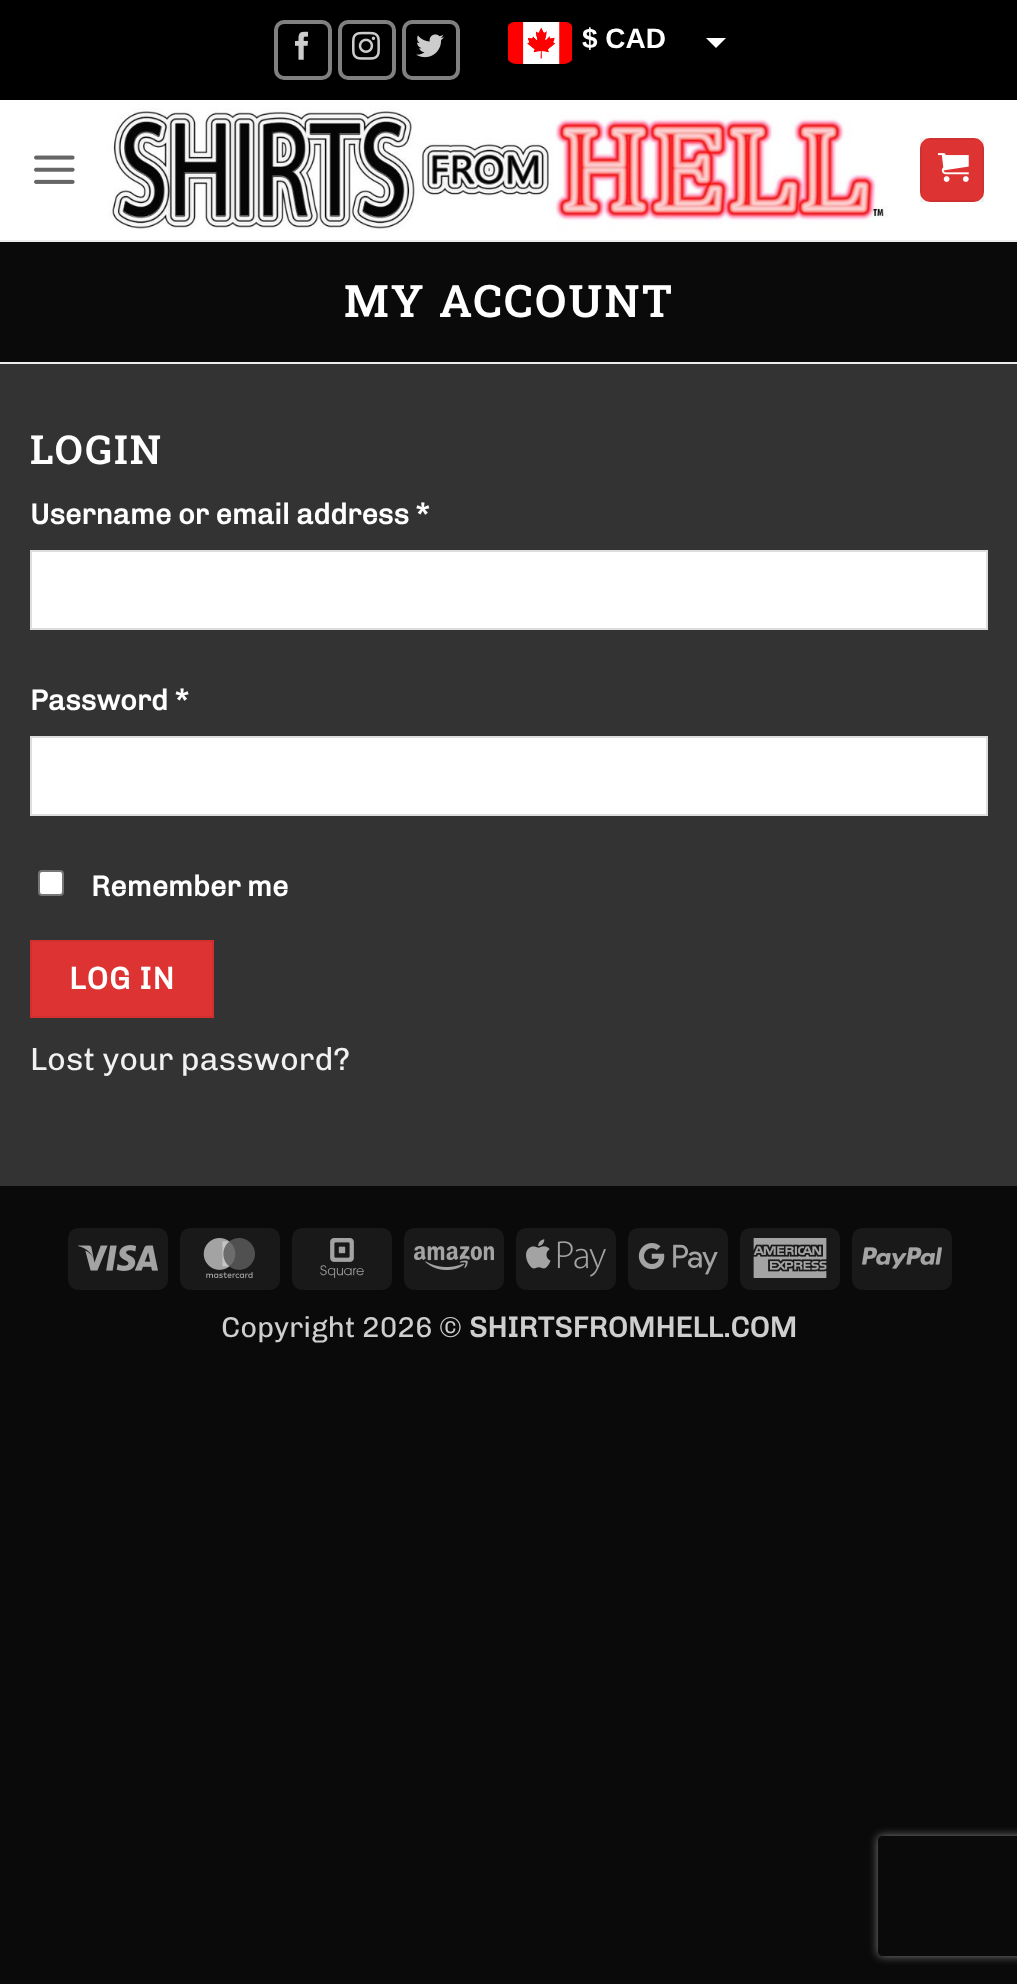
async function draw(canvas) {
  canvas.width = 1017;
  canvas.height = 1984;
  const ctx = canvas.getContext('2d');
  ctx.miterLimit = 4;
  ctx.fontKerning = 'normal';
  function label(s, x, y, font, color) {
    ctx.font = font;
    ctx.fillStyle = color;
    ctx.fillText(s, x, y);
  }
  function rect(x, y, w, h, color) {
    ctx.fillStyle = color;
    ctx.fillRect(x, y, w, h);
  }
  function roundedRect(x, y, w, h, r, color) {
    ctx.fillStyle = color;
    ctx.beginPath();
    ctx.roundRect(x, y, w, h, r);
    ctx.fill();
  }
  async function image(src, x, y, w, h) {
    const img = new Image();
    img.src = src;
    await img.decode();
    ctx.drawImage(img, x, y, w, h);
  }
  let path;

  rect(0, 0, 1017, 1984, '#0a0a0a');
  rect(0, 100, 1017, 140, '#fff');
  rect(0, 0, 1017, 100, '#000');
  ctx.beginPath();
  ctx.roundRect(276, 22, 54, 56, 8);
  ctx.strokeStyle = '#808080';
  ctx.lineWidth = 4;
  ctx.stroke();
  await image('assets/img1.png', 295, 31, 13, 29);
  ctx.beginPath();
  ctx.roundRect(340, 22, 54, 56, 8);
  ctx.stroke();
  await image('assets/img2.png', 352, 31, 28, 29);
  ctx.beginPath();
  ctx.roundRect(404, 22, 54, 56, 8);
  ctx.stroke();
  await image('assets/img3.png', 416, 34, 28, 24);
  await image('assets/img4.png', 508, 22, 64, 42);
  label('$ CAD', 582, 48, 'bold 28px Liberation Sans', '#fff');
  path = new Path2D('M706 38H726L716 48Z');
  ctx.fill(path);
  await image('assets/img5.png', 34, 155, 41, 29);
  await image('assets/img6.png', 108, 108, 780, 123);
  roundedRect(920, 138, 64, 64, 10, '#d33');
  ctx.strokeStyle = '#0000000d';
  ctx.lineWidth = 2;
  ctx.strokeRect(921, 139, 62, 62);
  await image('assets/img7.png', 938, 153, 31, 29);
  rect(0, 364, 1017, 822, '#333');
  rect(0, 240, 1017, 2, '#ececec');
  rect(0, 362, 1017, 2, '#ececec');
  ctx.letterSpacing = '2.25px';
  label('MY ACCOUNT', 344, 317, '600 44.75px Roboto Slab', '#fff');
  ctx.letterSpacing = '2px';
  label('LOGIN', 30, 464, '600 40px Roboto Slab', '#fff');
  ctx.letterSpacing = '0px';
  label('Username or email address *', 30, 524, 'bold 28.75px Chivo', '#fff');
  ctx.beginPath();
  ctx.rect(31, 551, 956, 78);
  ctx.fill();
  ctx.strokeStyle = '#ddd';
  ctx.stroke();
  label('Password *', 30, 710, 'bold 28.75px Chivo', '#fff');
  ctx.beginPath();
  ctx.rect(31, 737, 956, 78);
  ctx.fill();
  ctx.stroke();
  ctx.beginPath();
  ctx.roundRect(39, 871, 24, 24, 3);
  ctx.fill();
  ctx.strokeStyle = '#767676';
  ctx.stroke();
  label('Remember me', 91, 896, 'bold 28.75px Chivo', '#fff');
  ctx.fillStyle = '#d33';
  ctx.beginPath();
  ctx.rect(31, 941, 182, 76);
  ctx.fill();
  ctx.strokeStyle = '#d23030';
  ctx.stroke();
  ctx.letterSpacing = '1px';
  label('LOG IN', 69, 989, 'bold 31px Chivo', '#fff');
  ctx.letterSpacing = '0px';
  label('Lost your password?', 30, 1070, '500 32px Chivo', '#f1f1f1');
  roundedRect(68, 1228, 100, 62, 10, '#191919');
  await image('assets/img8.png', 78, 1245, 80, 26);
  roundedRect(180, 1228, 100, 62, 10, '#191919');
  await image('assets/img9.png', 203, 1238, 52, 40);
  roundedRect(292, 1228, 100, 62, 10, '#191919');
  await image('assets/img10.png', 320, 1238, 44, 40);
  roundedRect(404, 1228, 100, 62, 10, '#191919');
  await image('assets/img11.png', 414, 1246, 80, 24);
  roundedRect(516, 1228, 100, 62, 10, '#191919');
  await image('assets/img12.png', 526, 1239, 80, 38);
  roundedRect(628, 1228, 100, 62, 10, '#191919');
  await image('assets/img13.png', 638, 1243, 80, 32);
  roundedRect(740, 1228, 100, 62, 10, '#191919');
  await image('assets/img14.png', 753, 1238, 74, 40);
  roundedRect(852, 1228, 100, 62, 10, '#191919');
  await image('assets/img15.png', 862, 1247, 80, 22);
  label('Copyright 2026 ©', 221, 1337, '500 28.75px Chivo', '#cecece');
  label('SHIRTSFROMHELL.COM', 469, 1337, 'bold 28.75px Chivo', '#cecece');
  ctx.save();
  path = new Path2D('M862 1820H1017V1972H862ZM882 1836H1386C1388 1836 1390 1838 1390 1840V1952C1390 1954 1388 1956 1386 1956H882C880 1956 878 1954 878 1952V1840C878 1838 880 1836 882 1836Z');
  ctx.clip(path, 'evenodd');
  ctx.fillStyle = '#808080';
  ctx.filter = 'blur(5px)';
  ctx.beginPath();
  ctx.roundRect(878, 1836, 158, 120, 4);
  ctx.fill();
  ctx.filter = 'none';
  ctx.restore();
}

draw(document.querySelector('canvas'));
